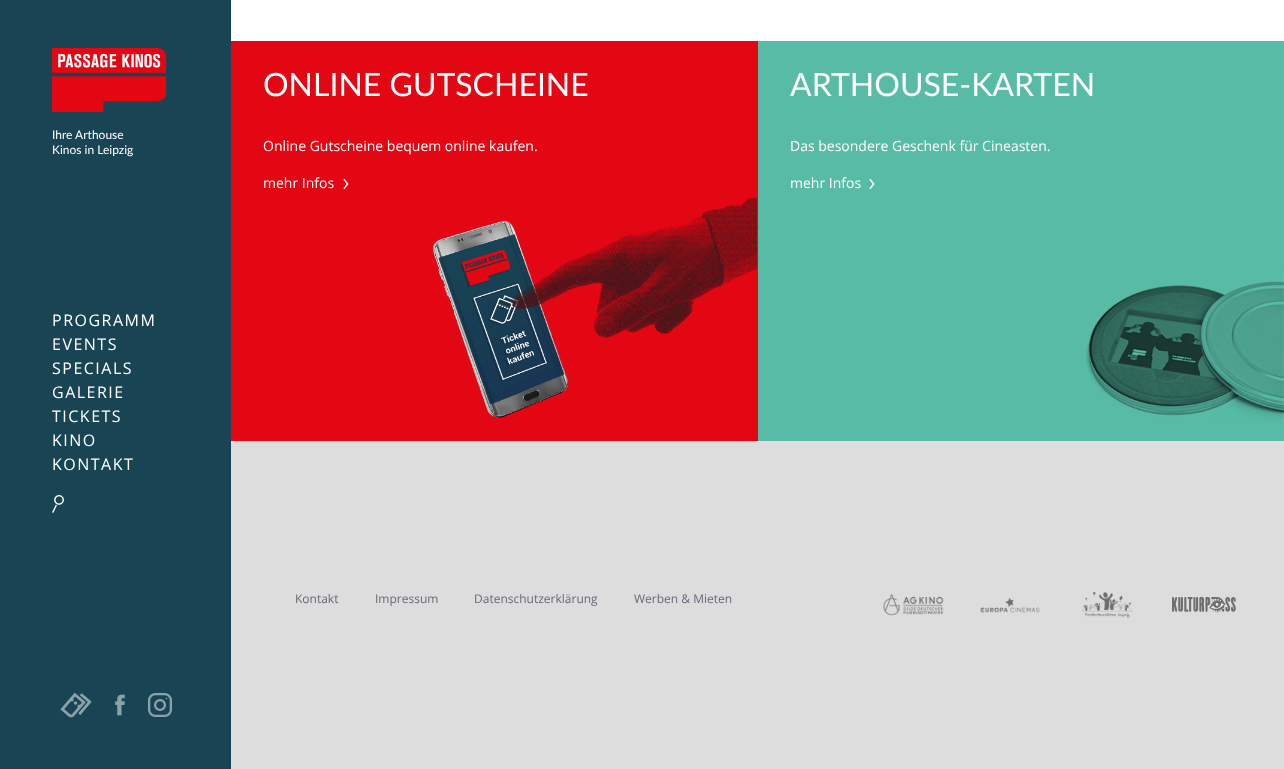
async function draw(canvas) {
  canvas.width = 1284;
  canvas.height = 769;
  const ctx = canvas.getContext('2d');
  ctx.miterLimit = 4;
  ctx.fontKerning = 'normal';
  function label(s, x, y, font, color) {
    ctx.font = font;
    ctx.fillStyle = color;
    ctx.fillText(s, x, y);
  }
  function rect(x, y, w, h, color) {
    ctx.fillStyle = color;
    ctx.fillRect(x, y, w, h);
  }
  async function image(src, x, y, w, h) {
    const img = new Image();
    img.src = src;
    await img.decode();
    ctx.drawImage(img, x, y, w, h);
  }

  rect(0, 0, 1284, 769, '#fff');
  rect(0, 0, 231, 769, '#194454');
  await image('assets/img1.png', 52, 48, 114, 64);
  label('Ihre Arthouse', 52, 139, '12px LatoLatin', '#fff');
  label('Kinos in Leipzig', 52, 154, '12px LatoLatin', '#fff');
  rect(231, 41, 527, 400, '#e30613');
  await image('assets/img2.png', 433, 197, 324, 221);
  label('ONLINE GUTSCHEINE', 263, 96, '32px LatoLatin', '#fff');
  label('Online Gutscheine bequem online kaufen.', 263, 151, '14px Open Sans', '#fff');
  label('mehr Infos', 263, 188, '14px Open Sans', '#fff');
  await image('assets/img3.png', 343, 178, 6, 12);
  rect(758, 41, 526, 400, '#58bba5');
  await image('assets/img4.png', 1086, 269, 198, 156);
  label('ARTHOUSE-KARTEN', 790, 96, '32px LatoLatin', '#fff');
  label('Das besondere Geschenk für Cineasten.', 790, 151, '14px Open Sans', '#fff');
  label('mehr Infos', 790, 188, '14px Open Sans', '#fff');
  await image('assets/img5.png', 869, 179, 6, 11);
  rect(231, 441, 1053, 328, '#ddd');
  label('Kontakt', 295, 603, '12px Open Sans', '#666a76');
  label('Impressum', 375, 603, '12px Open Sans', '#666a76');
  label('Datenschutzerklärung', 474, 603, '12px Open Sans', '#666a76');
  label('Werben & Mieten', 634, 603, '12px Open Sans', '#666a76');
  await image('assets/img6.png', 883, 594, 61, 22);
  await image('assets/img7.png', 980, 597, 60, 16);
  await image('assets/img8.png', 1082, 592, 51, 26);
  await image('assets/img9.png', 1172, 597, 64, 16);
  ctx.letterSpacing = '1.5px';
  label('PROGRAMM', 52, 326, '16px Open Sans', '#fff');
  label('EVENTS', 52, 350, '16px Open Sans', '#fff');
  label('SPECIALS', 52, 374, '16px Open Sans', '#fff');
  label('GALERIE', 52, 398, '16px Open Sans', '#fff');
  label('TICKETS', 52, 422, '16px Open Sans', '#fff');
  label('KINO', 52, 446, '16px Open Sans', '#fff');
  label('KONTAKT', 52, 470, '16px Open Sans', '#fff');
  await image('assets/img10.png', 52, 495, 12, 18);
  await image('assets/img11.png', 60, 692, 32, 26);
  await image('assets/img12.png', 115, 694, 10, 22);
  await image('assets/img13.png', 148, 693, 24, 24);
}

draw(document.querySelector('canvas'));
